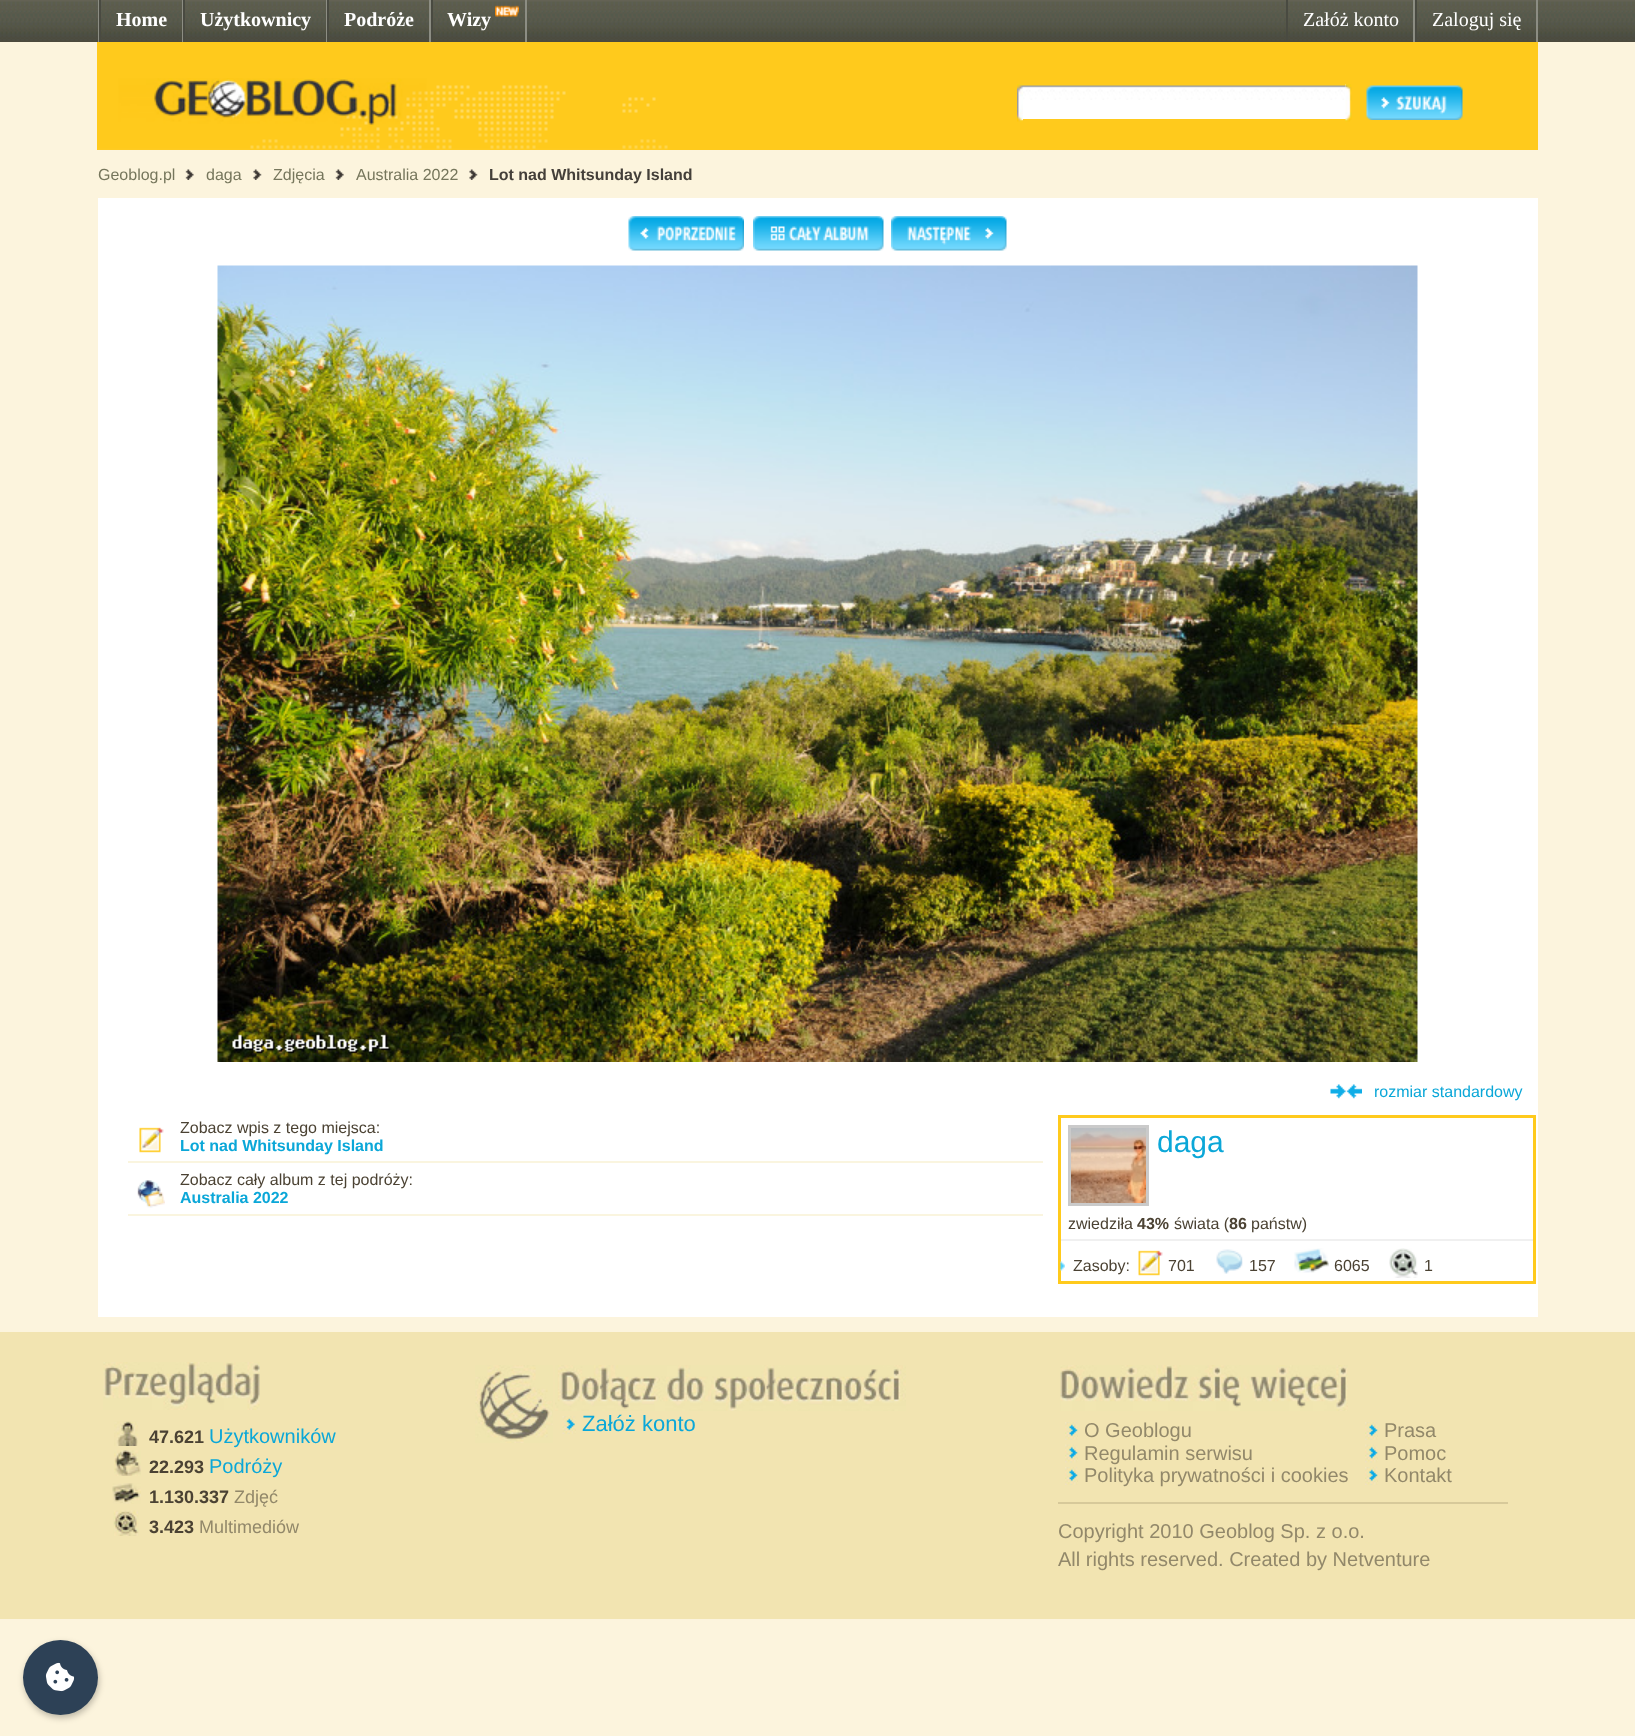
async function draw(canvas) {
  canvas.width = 1635;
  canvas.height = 1736;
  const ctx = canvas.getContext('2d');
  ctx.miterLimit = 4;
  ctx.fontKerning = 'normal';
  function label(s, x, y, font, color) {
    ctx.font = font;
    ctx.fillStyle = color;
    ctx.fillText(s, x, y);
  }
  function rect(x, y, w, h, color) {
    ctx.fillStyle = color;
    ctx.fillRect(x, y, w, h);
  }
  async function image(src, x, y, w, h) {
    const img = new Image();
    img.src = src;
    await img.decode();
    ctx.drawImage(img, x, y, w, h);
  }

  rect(0, 0, 1635, 1736, '#fcf4dd');
  await image('assets/img1.png', 0, 0, 1635, 42);
  rect(98, 0, 1, 42, '#8c8d83');
  rect(182, 0, 1, 42, '#8c8d83');
  rect(99, 0, 2, 42, '#494a41');
  label('Home', 116, 26, 'bold 20px Liberation Serif', '#fff');
  rect(326, 0, 1, 42, '#8c8d83');
  rect(183, 0, 2, 42, '#494a41');
  label('Użytkownicy', 200, 26, 'bold 20px Liberation Serif', '#fff');
  rect(429, 0, 2, 42, '#8c8d83');
  rect(327, 0, 2, 42, '#494a41');
  label('Podróże', 344, 26, 'bold 20px Liberation Serif', '#fff');
  rect(525, 0, 2, 42, '#8c8d83');
  rect(431, 0, 2, 42, '#494a41');
  label('Wizy', 447, 26, 'bold 20px Liberation Serif', '#fff');
  await image('assets/img2.png', 495, 5, 24, 12);
  rect(1413, 0, 2, 42, '#8c8d83');
  rect(1286, 0, 2, 42, '#494a41');
  label('Załóż konto', 1303, 26, '20px Liberation Serif', '#fff');
  rect(1536, 0, 2, 42, '#8c8d83');
  rect(1415, 0, 2, 42, '#494a41');
  label('Zaloguj się', 1432, 26, '20px Liberation Serif', '#fff');
  rect(97, 42, 1441, 108, '#ffca1c');
  await image('assets/img3.png', 98, 78, 570, 72);
  await image('assets/img4.png', 1017, 84, 6, 38);
  rect(1023, 84, 323, 35, '#fff');
  await image('assets/img5.png', 1023, 84, 323, 16);
  await image('assets/img6.png', 1345, 84, 7, 38);
  await image('assets/img7.png', 1366, 85, 97, 35);
  label('Geoblog.pl', 98, 180, '16px Liberation Sans', '#76765c');
  await image('assets/img8.png', 185, 169, 9, 11);
  label('daga', 206, 180, '16px Liberation Sans', '#76765c');
  await image('assets/img9.png', 253, 169, 9, 11);
  label('Zdjęcia', 273, 180, '16px Liberation Sans', '#76765c');
  await image('assets/img10.png', 335, 169, 9, 11);
  label('Australia 2022', 356, 180, '16px Liberation Sans', '#76765c');
  await image('assets/img9.png', 469, 169, 9, 11);
  label('Lot nad Whitsunday Island', 489, 180, 'bold 16px Liberation Sans', '#443f39');
  rect(98, 198, 1440, 1119, '#fff');
  await image('assets/img11.png', 628, 216, 116, 35);
  await image('assets/img12.png', 753, 216, 131, 35);
  await image('assets/img13.png', 891, 216, 116, 35);
  await image('assets/img14.png', 217, 265, 1201, 797);
  await image('assets/img15.png', 1330, 1084, 32, 15);
  label('rozmiar standardowy', 1374, 1097, '16px Liberation Sans', '#0ba7d8');
  rect(128, 1161, 915, 2, '#faf5df');
  await image('assets/img16.png', 139, 1127, 25, 26);
  label('Zobacz wpis z tego miejsca:', 180, 1133, '16px Liberation Sans', '#4b4233');
  label('Lot nad Whitsunday Island', 180, 1151, 'bold 16px Liberation Sans', '#0ba7d8');
  rect(128, 1214, 915, 2, '#faf5df');
  await image('assets/img17.png', 137, 1180, 28, 28);
  label('Zobacz cały album z tej podróży:', 180, 1185, '16px Liberation Sans', '#4b4233');
  label('Australia 2022', 180, 1203, 'bold 16px Liberation Sans', '#0ba7d8');
  ctx.strokeStyle = '#ffca1c';
  ctx.lineWidth = 3;
  ctx.strokeRect(1059.5, 1116.5, 475, 166);
  rect(1061, 1239, 472, 2, '#f0f0f0');
  ctx.strokeStyle = '#cacaca';
  ctx.strokeRect(1069.5, 1126.5, 78, 78);
  await image('assets/img18.png', 1071, 1128, 75, 75);
  label('daga', 1157, 1152, '30px Liberation Sans', '#0ba7d8');
  label('zwiedziła', 1068, 1229, '16px Liberation Sans', '#4b4233');
  label('43%', 1137, 1229, 'bold 16px Liberation Sans', '#4b4233');
  label('świata (', 1174, 1229, '16px Liberation Sans', '#4b4233');
  label('86', 1229, 1229, 'bold 16px Liberation Sans', '#4b4233');
  label('państw)', 1251, 1229, '16px Liberation Sans', '#4b4233');
  await image('assets/img19.png', 1060, 1261, 5, 10);
  label('Zasoby:', 1073, 1271, '16px Liberation Sans', '#4b4233');
  await image('assets/img20.png', 1138, 1250, 25, 26);
  label('701', 1168, 1271, '16px Liberation Sans', '#4b4233');
  await image('assets/img21.png', 1216, 1249, 27, 25);
  label('157', 1249, 1271, '16px Liberation Sans', '#4b4233');
  await image('assets/img22.png', 1294, 1248, 35, 25);
  label('6065', 1334, 1271, '16px Liberation Sans', '#4b4233');
  await image('assets/img23.png', 1389, 1248, 29, 30);
  label('1', 1424, 1271, '16px Liberation Sans', '#4b4233');
  rect(0, 1332, 1635, 287, '#f2e4b1');
  await image('assets/img24.png', 475, 1365, 78, 78);
  await image('assets/img25.png', 555, 1365, 351, 46);
  await image('assets/img26.png', 562, 1416, 14, 18);
  label('Załóż konto', 582, 1431, '22px Liberation Sans', '#0ba7d8');
  await image('assets/img27.png', 103, 1362, 157, 48);
  await image('assets/img28.png', 114, 1421, 24, 25);
  label('47.621', 149, 1443, 'bold 18px Liberation Sans', '#4b4233');
  label('Użytkowników', 209, 1443, '20px Liberation Sans', '#0ba7d8');
  await image('assets/img29.png', 114, 1450, 27, 26);
  label('22.293', 149, 1473, 'bold 18px Liberation Sans', '#4b4233');
  label('Podróży', 209, 1473, '20px Liberation Sans', '#0ba7d8');
  await image('assets/img30.png', 112, 1483, 29, 21);
  label('1.130.337', 149, 1503, 'bold 18px Liberation Sans', '#4b4233');
  label('Zdjęć', 234, 1503, '18px Liberation Sans', '#92886a');
  await image('assets/img31.png', 113, 1510, 26, 26);
  label('3.423', 149, 1533, 'bold 18px Liberation Sans', '#4b4233');
  label('Multimediów', 199, 1533, '18px Liberation Sans', '#92886a');
  await image('assets/img32.png', 1060, 1365, 288, 46);
  rect(1058, 1502, 450, 2, '#d7c99a');
  await image('assets/img33.png', 1065, 1422, 13, 18);
  label('O Geoblogu', 1084, 1437, '20px Liberation Sans', '#92886a');
  await image('assets/img34.png', 1065, 1444, 13, 19);
  label('Regulamin serwisu', 1084, 1460, '20px Liberation Sans', '#92886a');
  await image('assets/img33.png', 1065, 1467, 13, 18);
  label('Polityka prywatności i cookies', 1084, 1482, '20px Liberation Sans', '#92886a');
  await image('assets/img33.png', 1365, 1422, 13, 18);
  label('Prasa', 1384, 1437, '20px Liberation Sans', '#92886a');
  await image('assets/img34.png', 1365, 1444, 13, 19);
  label('Pomoc', 1384, 1460, '20px Liberation Sans', '#92886a');
  await image('assets/img33.png', 1365, 1467, 13, 18);
  label('Kontakt', 1384, 1482, '20px Liberation Sans', '#92886a');
  label('Copyright 2010 Geoblog Sp. z o.o.', 1058, 1538, '20px Liberation Sans', '#92886a');
  label('All rights reserved. Created by Netventure', 1058, 1566, '20px Liberation Sans', '#92886a');
  ctx.fillStyle = '#00000040';
  ctx.filter = 'blur(3px)';
  ctx.beginPath();
  ctx.roundRect(24, 1643, 75, 75, 37.5);
  ctx.fill();
  ctx.filter = 'none';
  ctx.fillStyle = '#2d4156';
  ctx.beginPath();
  ctx.arc(60.5, 1677.5, 37.5, 0, 2 * Math.PI);
  ctx.fill();
  await image('assets/img35.png', 45, 1662, 30, 30);
}

draw(document.querySelector('canvas'));
